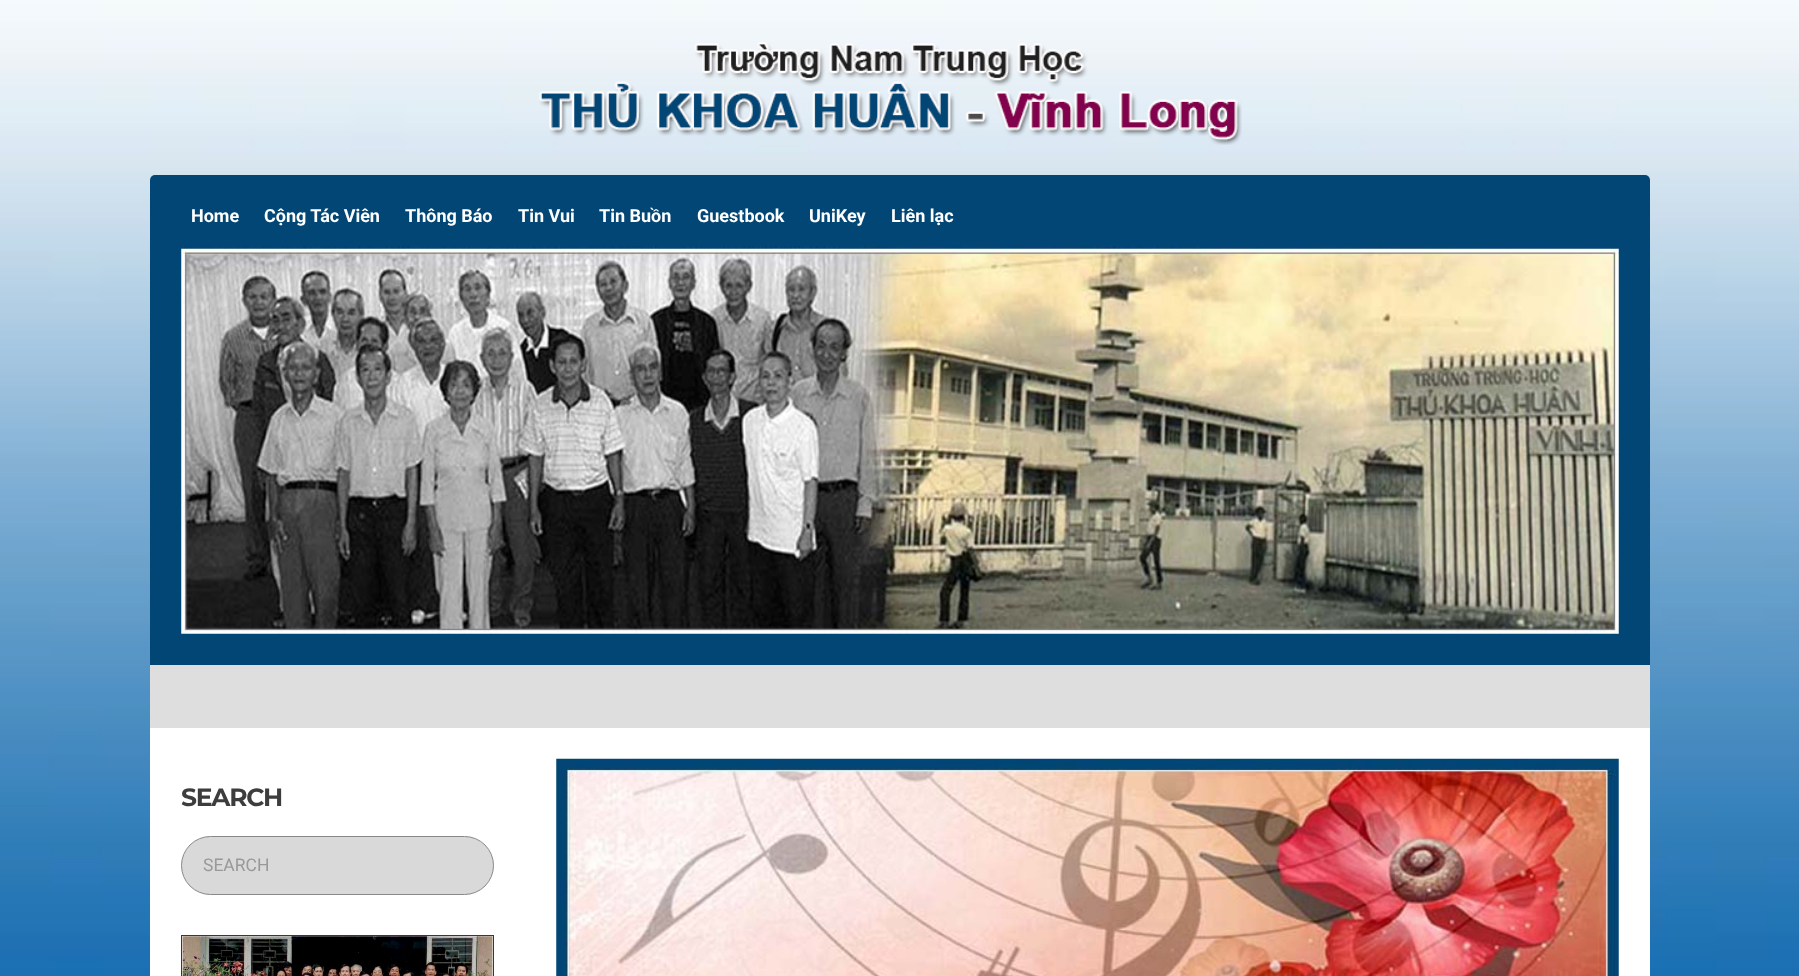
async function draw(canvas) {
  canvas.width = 1799;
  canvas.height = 976;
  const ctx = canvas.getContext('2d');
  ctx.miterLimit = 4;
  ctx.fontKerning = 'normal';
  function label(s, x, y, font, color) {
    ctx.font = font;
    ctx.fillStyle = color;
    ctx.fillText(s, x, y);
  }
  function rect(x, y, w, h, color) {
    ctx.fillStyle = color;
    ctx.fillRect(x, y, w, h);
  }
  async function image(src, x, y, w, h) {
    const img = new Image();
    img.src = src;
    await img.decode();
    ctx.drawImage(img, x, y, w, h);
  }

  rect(0, 0, 1799, 976, '#fff');
  await image('assets/img1.png', 0, 0, 1799, 976);
  await image('assets/img2.png', 539, 42, 703, 103);
  ctx.fillStyle = '#024675';
  ctx.beginPath();
  ctx.roundRect(150, 175, 1500, 490, [5, 5, 0, 0]);
  ctx.fill();
  await image('assets/img3.png', 181, 246, 1438, 388);
  label('Home', 191, 222, 'bold 18px Roboto', '#fff');
  label('Cộng Tác Viên', 264, 222, 'bold 18px Roboto', '#fff');
  label('Thông Báo', 405, 222, 'bold 18px Roboto', '#fff');
  label('Tin Vui', 518, 222, 'bold 18px Roboto', '#fff');
  label('Tin Buồn', 599, 222, 'bold 18px Roboto', '#fff');
  label('Guestbook', 697, 222, 'bold 18px Roboto', '#fff');
  label('UniKey', 809, 222, 'bold 18px Roboto', '#fff');
  label('Liên lạc', 891, 222, 'bold 18px Roboto', '#fff');
  rect(150, 665, 1500, 63, '#dedede');
  rect(150, 728, 1500, 248, '#fff');
  ctx.letterSpacing = '-1.25px';
  label('SEARCH', 181, 806, 'bold 25px Montserrat', '#3d3d3d');
  ctx.fillStyle = '#d9d9d9';
  ctx.beginPath();
  ctx.roundRect(181.5, 836.5, 312, 58, 29);
  ctx.fill();
  ctx.strokeStyle = '#888';
  ctx.stroke();
  ctx.letterSpacing = '0px';
  label('SEARCH', 203, 871, '17.5px Roboto', '#999');
  ctx.strokeStyle = '#024675';
  ctx.strokeRect(181.5, 935.5, 312, 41);
  await image('assets/img4.png', 182, 936, 311, 40);
  await image('assets/img5.png', 556, 758, 1063, 218);
}

draw(document.querySelector('canvas'));
